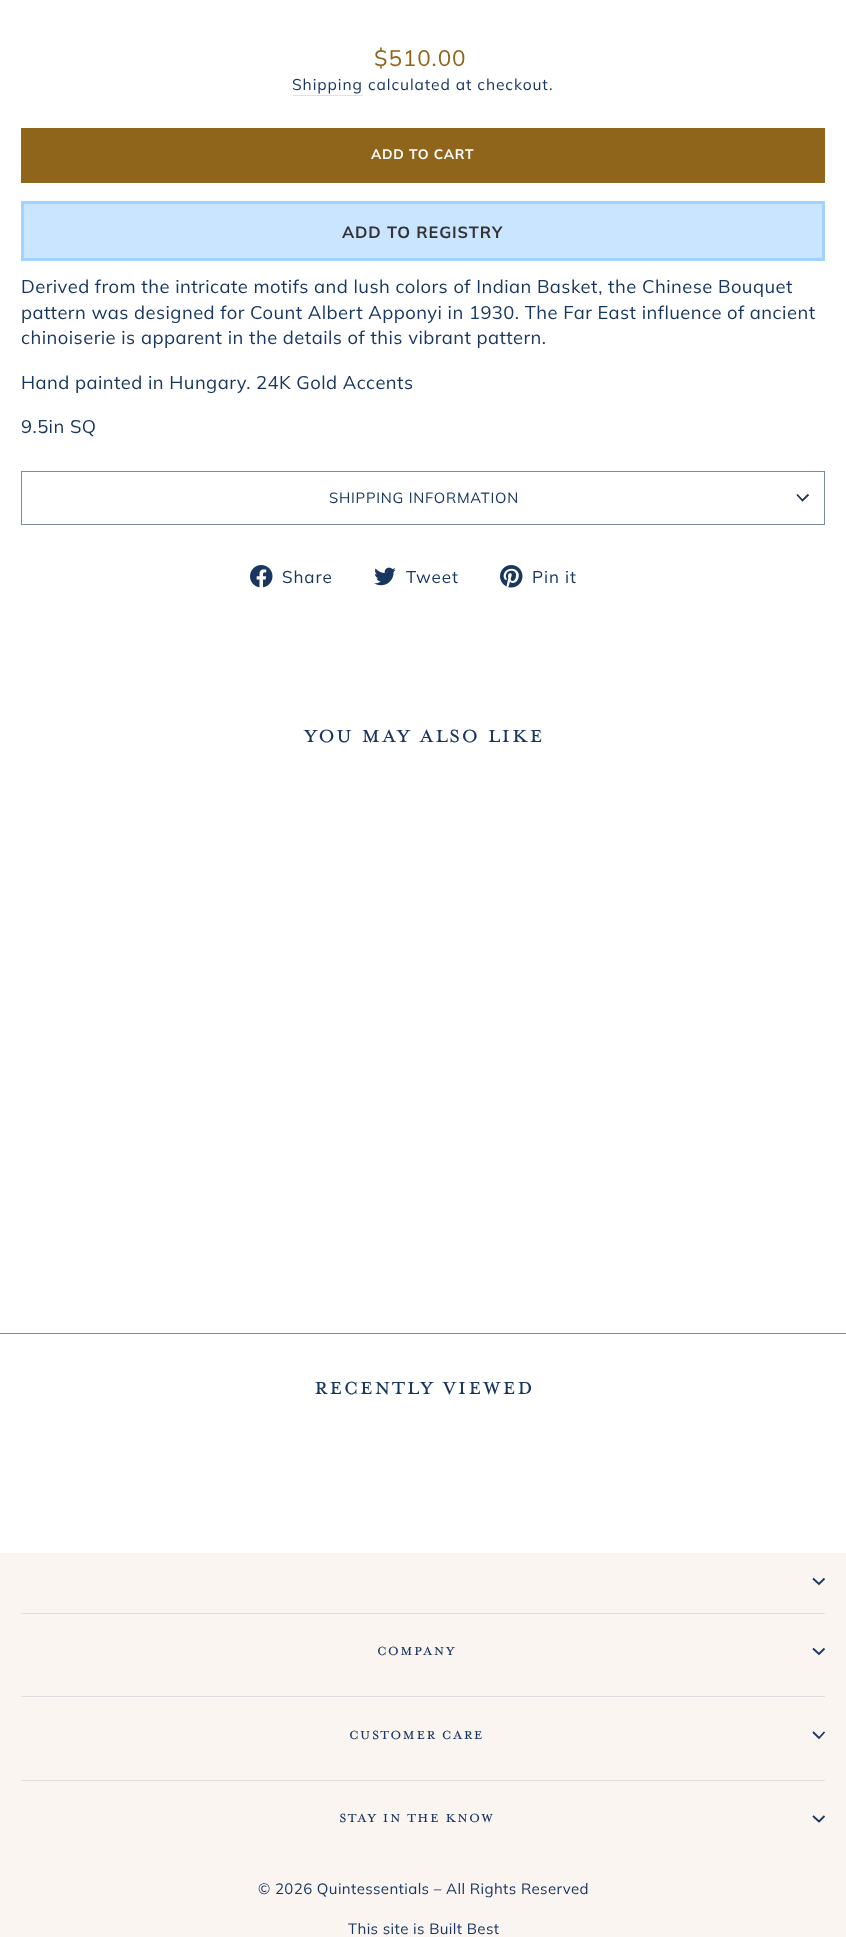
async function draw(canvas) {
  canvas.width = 846;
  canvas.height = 1937;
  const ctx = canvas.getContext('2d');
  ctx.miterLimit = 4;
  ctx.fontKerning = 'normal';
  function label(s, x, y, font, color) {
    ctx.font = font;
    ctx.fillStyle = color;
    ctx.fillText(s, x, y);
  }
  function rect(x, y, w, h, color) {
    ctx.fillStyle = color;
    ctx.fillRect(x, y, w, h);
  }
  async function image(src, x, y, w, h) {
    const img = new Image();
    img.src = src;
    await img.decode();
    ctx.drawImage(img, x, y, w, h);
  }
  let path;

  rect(0, 0, 846, 1937, '#fff');
  ctx.letterSpacing = '0.9px';
  label('$510.00', 374, 66, '200 22.5px Mulish', '#8f641b');
  rect(293, 95, 70, 1, '#dde1e7');
  label('Shipping', 292, 90, '200 15.6px Mulish', '#193660');
  label('calculated at checkout.', 368, 90, '200 15.6px Mulish', '#193660');
  rect(21, 128, 804, 55, '#8f641b');
  ctx.letterSpacing = '0.75px';
  label('ADD TO CART', 371, 159, 'bold 13.75px Mulish', '#fff');
  ctx.fillStyle = '#c9e5ff';
  ctx.beginPath();
  ctx.rect(22.5, 202.5, 801, 57);
  ctx.fill();
  ctx.strokeStyle = '#a2d2ff';
  ctx.lineWidth = 3;
  ctx.stroke();
  ctx.letterSpacing = '0.9px';
  label('ADD TO REGISTRY', 342, 238, 'bold 16.25px Mulish', '#333');
  ctx.letterSpacing = '0.45px';
  label('Derived from the intricate motifs and lush colors of Indian Basket, the Chinese Bouquet', 21, 293, '200 18.4px Mulish', '#193660');
  label('pattern was designed for Count Albert Apponyi in 1930. The Far East influence of ancient', 21, 319, '200 18.4px Mulish', '#193660');
  label('chinoiserie is apparent in the details of this vibrant pattern.', 21, 344, '200 18.4px Mulish', '#193660');
  label('Hand painted in Hungary. 24K Gold Accents', 21, 389, '200 18.4px Mulish', '#193660');
  label('9.5in SQ', 21, 433, '200 18.4px Mulish', '#193660');
  rect(21, 524, 804, 1, '#7a8c9d');
  rect(21, 471, 804, 1, '#7a8c9d');
  rect(824, 471, 1, 53, '#7a8c9d');
  rect(21, 471, 1, 53, '#7a8c9d');
  ctx.letterSpacing = '0.75px';
  label('SHIPPING INFORMATION', 329, 503, '200 14.75px Mulish', '#193660');
  path = new Path2D('M797 494.5L802.5 500.5L808.5 494.5');
  ctx.strokeStyle = '#193660';
  ctx.lineWidth = 1.8;
  ctx.stroke(path);
  await image('assets/img1.png', 250, 565, 23, 23);
  ctx.letterSpacing = '0.9px';
  label('Share', 282, 583, '200 17px Mulish', '#193660');
  await image('assets/img2.png', 374, 567, 22, 19);
  label('Tweet', 406, 583, '200 17px Mulish', '#193660');
  await image('assets/img3.png', 500, 565, 23, 23);
  label('Pin it', 532, 583, '200 17px Mulish', '#193660');
  ctx.letterSpacing = '1.4px';
  label('You May Also Like', 304, 742, '28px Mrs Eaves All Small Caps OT', '#193660');
  rect(0, 1333, 846, 1, '#7a8c9d');
  label('Recently viewed', 314, 1394, '28px Mrs Eaves All Small Caps OT', '#193660');
  rect(0, 1553, 846, 384, '#faf5f1');
  path = new Path2D('M813 1578.5L819 1584L824.5 1578.5');
  ctx.stroke(path);
  rect(21, 1613, 804, 1, '#dfdee0');
  ctx.letterSpacing = '1.1px';
  label('Company', 377, 1655, '18.75px Mrs Eaves All Small Caps OT', '#193660');
  path = new Path2D('M813 1648.5L819 1654L824.5 1648.5');
  ctx.stroke(path);
  rect(21, 1696, 804, 1, '#dfdee0');
  label('Customer Care', 349, 1739, '18.75px Mrs Eaves All Small Caps OT', '#193660');
  path = new Path2D('M813 1732L819 1738L824.5 1732');
  ctx.stroke(path);
  rect(21, 1780, 804, 1, '#dfdee0');
  label('Stay in the Know', 339, 1822, '18.75px Mrs Eaves All Small Caps OT', '#193660');
  path = new Path2D('M813 1816L819 1821.5L824.5 1816');
  ctx.stroke(path);
  ctx.letterSpacing = '0.4px';
  label('© 2026 Quintessentials – All Rights Reserved', 258, 1894, '200 15px Mulish', '#193660');
  label('This site is Built Best', 348, 1934, '200 15px Mulish', '#193660');
}

draw(document.querySelector('canvas'));
